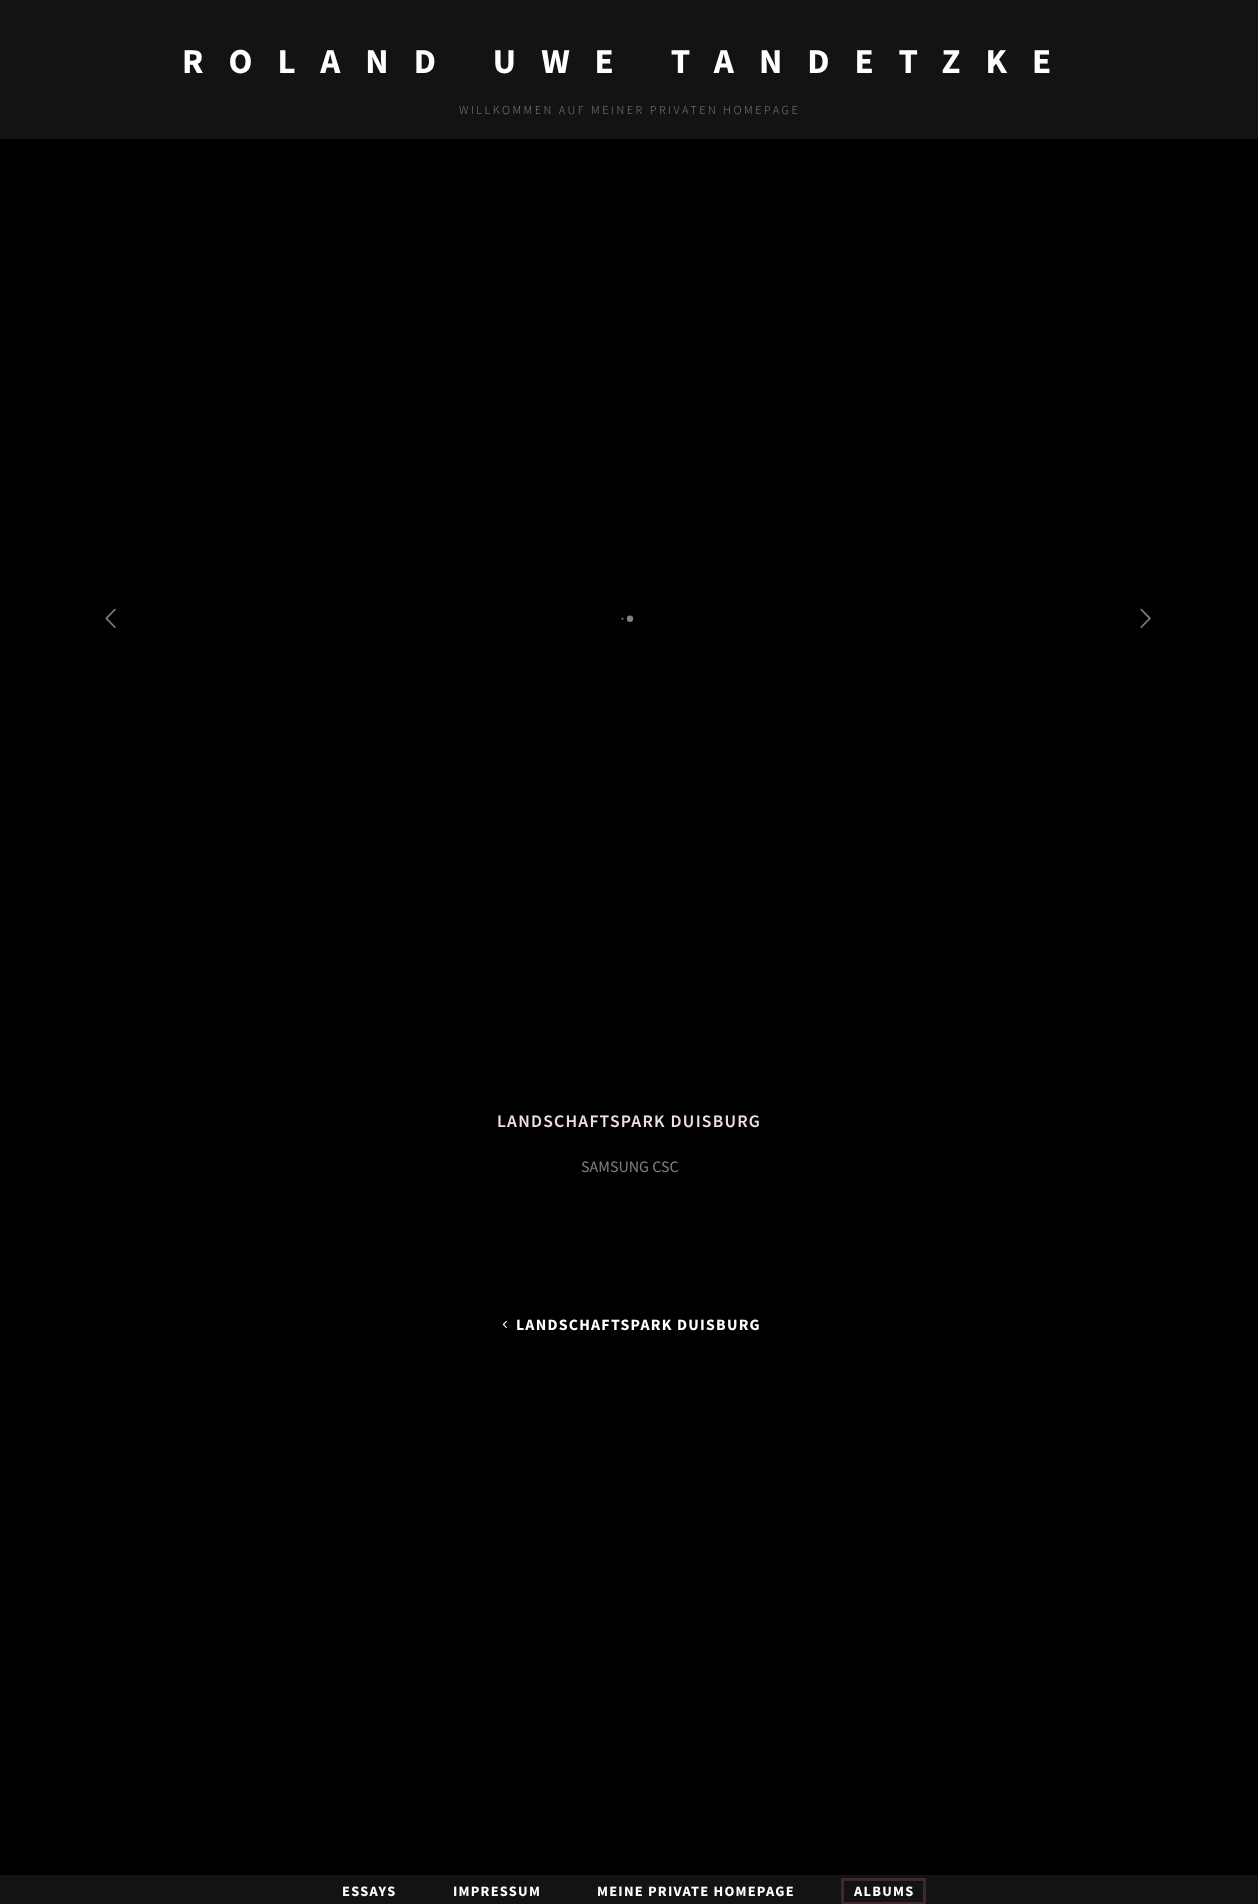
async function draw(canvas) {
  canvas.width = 1258;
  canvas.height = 1904;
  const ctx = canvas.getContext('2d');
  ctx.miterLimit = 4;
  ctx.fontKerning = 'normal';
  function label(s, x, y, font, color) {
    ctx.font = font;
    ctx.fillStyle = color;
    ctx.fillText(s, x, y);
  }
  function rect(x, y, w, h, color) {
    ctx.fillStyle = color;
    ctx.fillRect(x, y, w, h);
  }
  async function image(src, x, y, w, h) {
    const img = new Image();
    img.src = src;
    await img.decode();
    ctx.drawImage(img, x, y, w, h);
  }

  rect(0, 0, 1258, 1904, '#000');
  rect(0, 0, 1258, 139, '#131313');
  ctx.letterSpacing = '25px';
  label('ROLAND UWE TANDETZKE', 182, 73, 'bold 35px Source Sans Pro', '#fff');
  ctx.letterSpacing = '2.5px';
  label('WILLKOMMEN AUF MEINER PRIVATEN HOMEPAGE', 459, 114, '300 12.25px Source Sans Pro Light', '#818181');
  await image('assets/img1.png', 105, 608, 11, 20);
  await image('assets/img2.png', 621, 615, 13, 7);
  await image('assets/img3.png', 1140, 608, 11, 20);
  ctx.letterSpacing = '1.25px';
  label('LANDSCHAFTSPARK DUISBURG', 497, 1127, '600 17.6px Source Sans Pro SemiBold', '#f0dfdf');
  ctx.letterSpacing = '0px';
  label('SAMSUNG CSC', 581, 1172, '16px Source Sans Pro', '#818181');
  await image('assets/img4.png', 502, 1320, 5, 9);
  ctx.letterSpacing = '1.25px';
  label('LANDSCHAFTSPARK DUISBURG', 516, 1330, 'bold 15.8px Source Sans Pro', '#fff');
  rect(0, 1875, 1258, 29, '#131313');
  label('ESSAYS', 342, 1896, 'bold 14.4px Source Sans Pro', '#fff');
  label('IMPRESSUM', 453, 1896, 'bold 14.4px Source Sans Pro', '#fff');
  label('MEINE PRIVATE HOMEPAGE', 597, 1896, 'bold 14.4px Source Sans Pro', '#fff');
  ctx.strokeStyle = '#3e2828';
  ctx.lineWidth = 3;
  ctx.strokeRect(842.5, 1879.5, 82, 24);
  label('ALBUMS', 854, 1896, 'bold 14.4px Source Sans Pro', '#fff');
}

draw(document.querySelector('canvas'));
